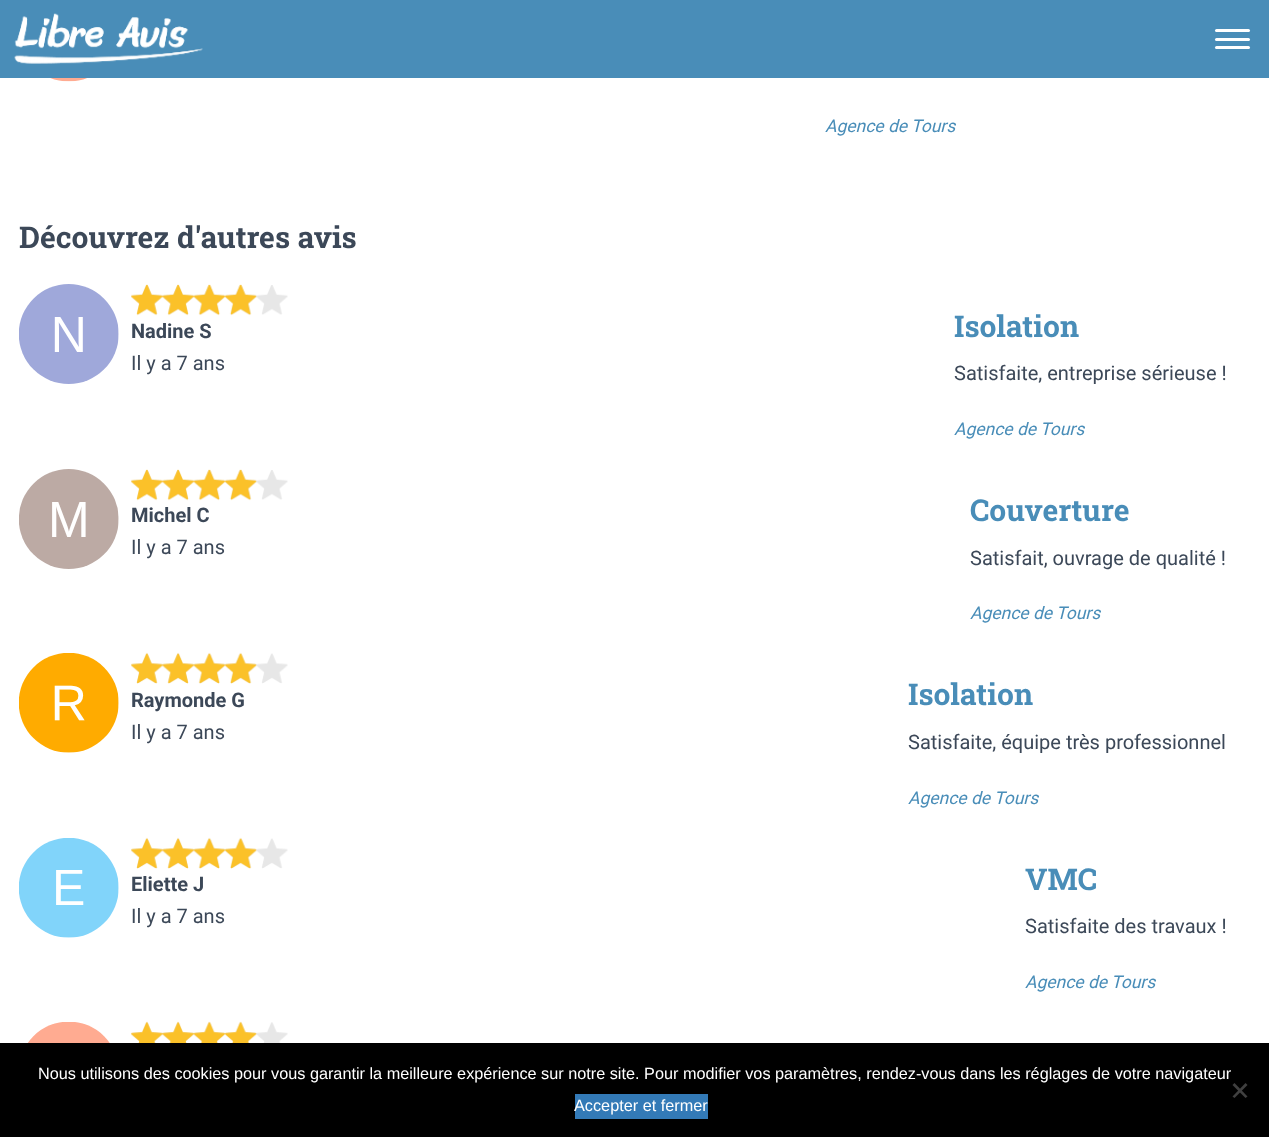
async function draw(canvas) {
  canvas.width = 1269;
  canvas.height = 1137;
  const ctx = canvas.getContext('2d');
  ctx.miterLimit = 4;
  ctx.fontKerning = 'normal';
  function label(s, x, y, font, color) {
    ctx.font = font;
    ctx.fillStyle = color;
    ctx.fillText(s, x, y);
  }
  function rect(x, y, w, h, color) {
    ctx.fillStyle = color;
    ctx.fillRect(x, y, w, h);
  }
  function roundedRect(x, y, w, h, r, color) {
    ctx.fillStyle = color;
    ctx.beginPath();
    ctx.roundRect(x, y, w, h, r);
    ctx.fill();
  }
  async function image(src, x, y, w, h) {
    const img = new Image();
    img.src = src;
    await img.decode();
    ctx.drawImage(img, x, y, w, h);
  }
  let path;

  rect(0, 0, 1269, 1137, '#fff');
  rect(0, 0, 1269, 78, '#498db8');
  await image('assets/img1.png', 14, 13, 189, 51);
  roundedRect(1215, 29, 35, 3, 1.5, '#fff');
  roundedRect(1215, 38, 35, 3, 1.5, '#fff');
  roundedRect(1215, 46, 35, 3, 1.5, '#fff');
  await image('assets/img2.png', 50, 78, 37, 4);
  label('Agence de Tours', 825, 132, 'italic 17.5px Roboto', '#498db8');
  label('Découvrez d\'autres avis', 19, 248, 'bold 30px Roboto Slab', '#3c4858');
  await image('assets/img3.png', 19, 284, 100, 100);
  await image('assets/img4.png', 131, 285, 157, 30);
  await image('assets/img5.png', 131, 284, 126, 32);
  label('Nadine S', 131, 338, 'bold 20px Roboto', '#3c4858');
  label('Il y a 7 ans', 131, 370, '20px Roboto', '#3c4858');
  label('Isolation', 954, 337, 'bold 30px Roboto Slab', '#498db8');
  label('Satisfaite, entreprise sérieuse !', 954, 380, '20px Roboto', '#3c4858');
  label('Agence de Tours', 954, 435, 'italic 17.5px Roboto', '#498db8');
  await image('assets/img6.png', 19, 469, 100, 100);
  await image('assets/img7.png', 131, 470, 157, 30);
  await image('assets/img8.png', 131, 469, 126, 32);
  label('Michel C', 131, 522, 'bold 20px Roboto', '#3c4858');
  label('Il y a 7 ans', 131, 554, '20px Roboto', '#3c4858');
  label('Couverture', 970, 521, 'bold 30px Roboto Slab', '#498db8');
  label('Satisfait, ouvrage de qualité !', 970, 565, '20px Roboto', '#3c4858');
  label('Agence de Tours', 970, 619, 'italic 17.5px Roboto', '#498db8');
  await image('assets/img9.png', 19, 653, 100, 100);
  await image('assets/img10.png', 131, 653, 157, 31);
  await image('assets/img11.png', 131, 652, 126, 32);
  label('Raymonde G', 131, 707, 'bold 20px Roboto', '#3c4858');
  label('Il y a 7 ans', 131, 739, '20px Roboto', '#3c4858');
  label('Isolation', 908, 705, 'bold 30px Roboto Slab', '#498db8');
  label('Satisfaite, équipe très professionnel', 908, 749, '20px Roboto', '#3c4858');
  label('Agence de Tours', 908, 804, 'italic 17.5px Roboto', '#498db8');
  await image('assets/img12.png', 19, 838, 100, 100);
  await image('assets/img13.png', 131, 838, 157, 31);
  await image('assets/img14.png', 131, 837, 126, 32);
  label('Eliette J', 131, 891, 'bold 20px Roboto', '#3c4858');
  label('Il y a 7 ans', 131, 923, '20px Roboto', '#3c4858');
  label('VMC', 1025, 890, 'bold 30px Roboto Slab', '#498db8');
  label('Satisfaite des travaux !', 1025, 933, '20px Roboto', '#3c4858');
  label('Agence de Tours', 1025, 988, 'italic 17.5px Roboto', '#498db8');
  await image('assets/img15.png', 27, 1022, 83, 21);
  await image('assets/img16.png', 131, 1022, 157, 21);
  await image('assets/img17.png', 131, 1021, 126, 22);
  rect(0, 1043, 1269, 94, '#000');
  label('Nous utilisons des cookies pour vous garantir la meilleure expérience sur notre site. Pour modifier vos paramètres, rendez-vous dans les réglages de votre navigateur', 38, 1079, '16.25px Liberation Sans', '#fff');
  ctx.fillStyle = '#404040';
  path = new Path2D('M1245.5 1083L1247.5 1085L1234.5 1098L1232.5 1096.5Z');
  ctx.fill(path);
  path = new Path2D('M1232.5 1085L1234.5 1083L1247.5 1096.5L1245.5 1098Z');
  ctx.fill(path);
  rect(575, 1094, 133, 25, '#337ab7');
  label('Accepter et fermer', 574, 1111, '16.25px Liberation Sans', '#fff');
}

draw(document.querySelector('canvas'));
